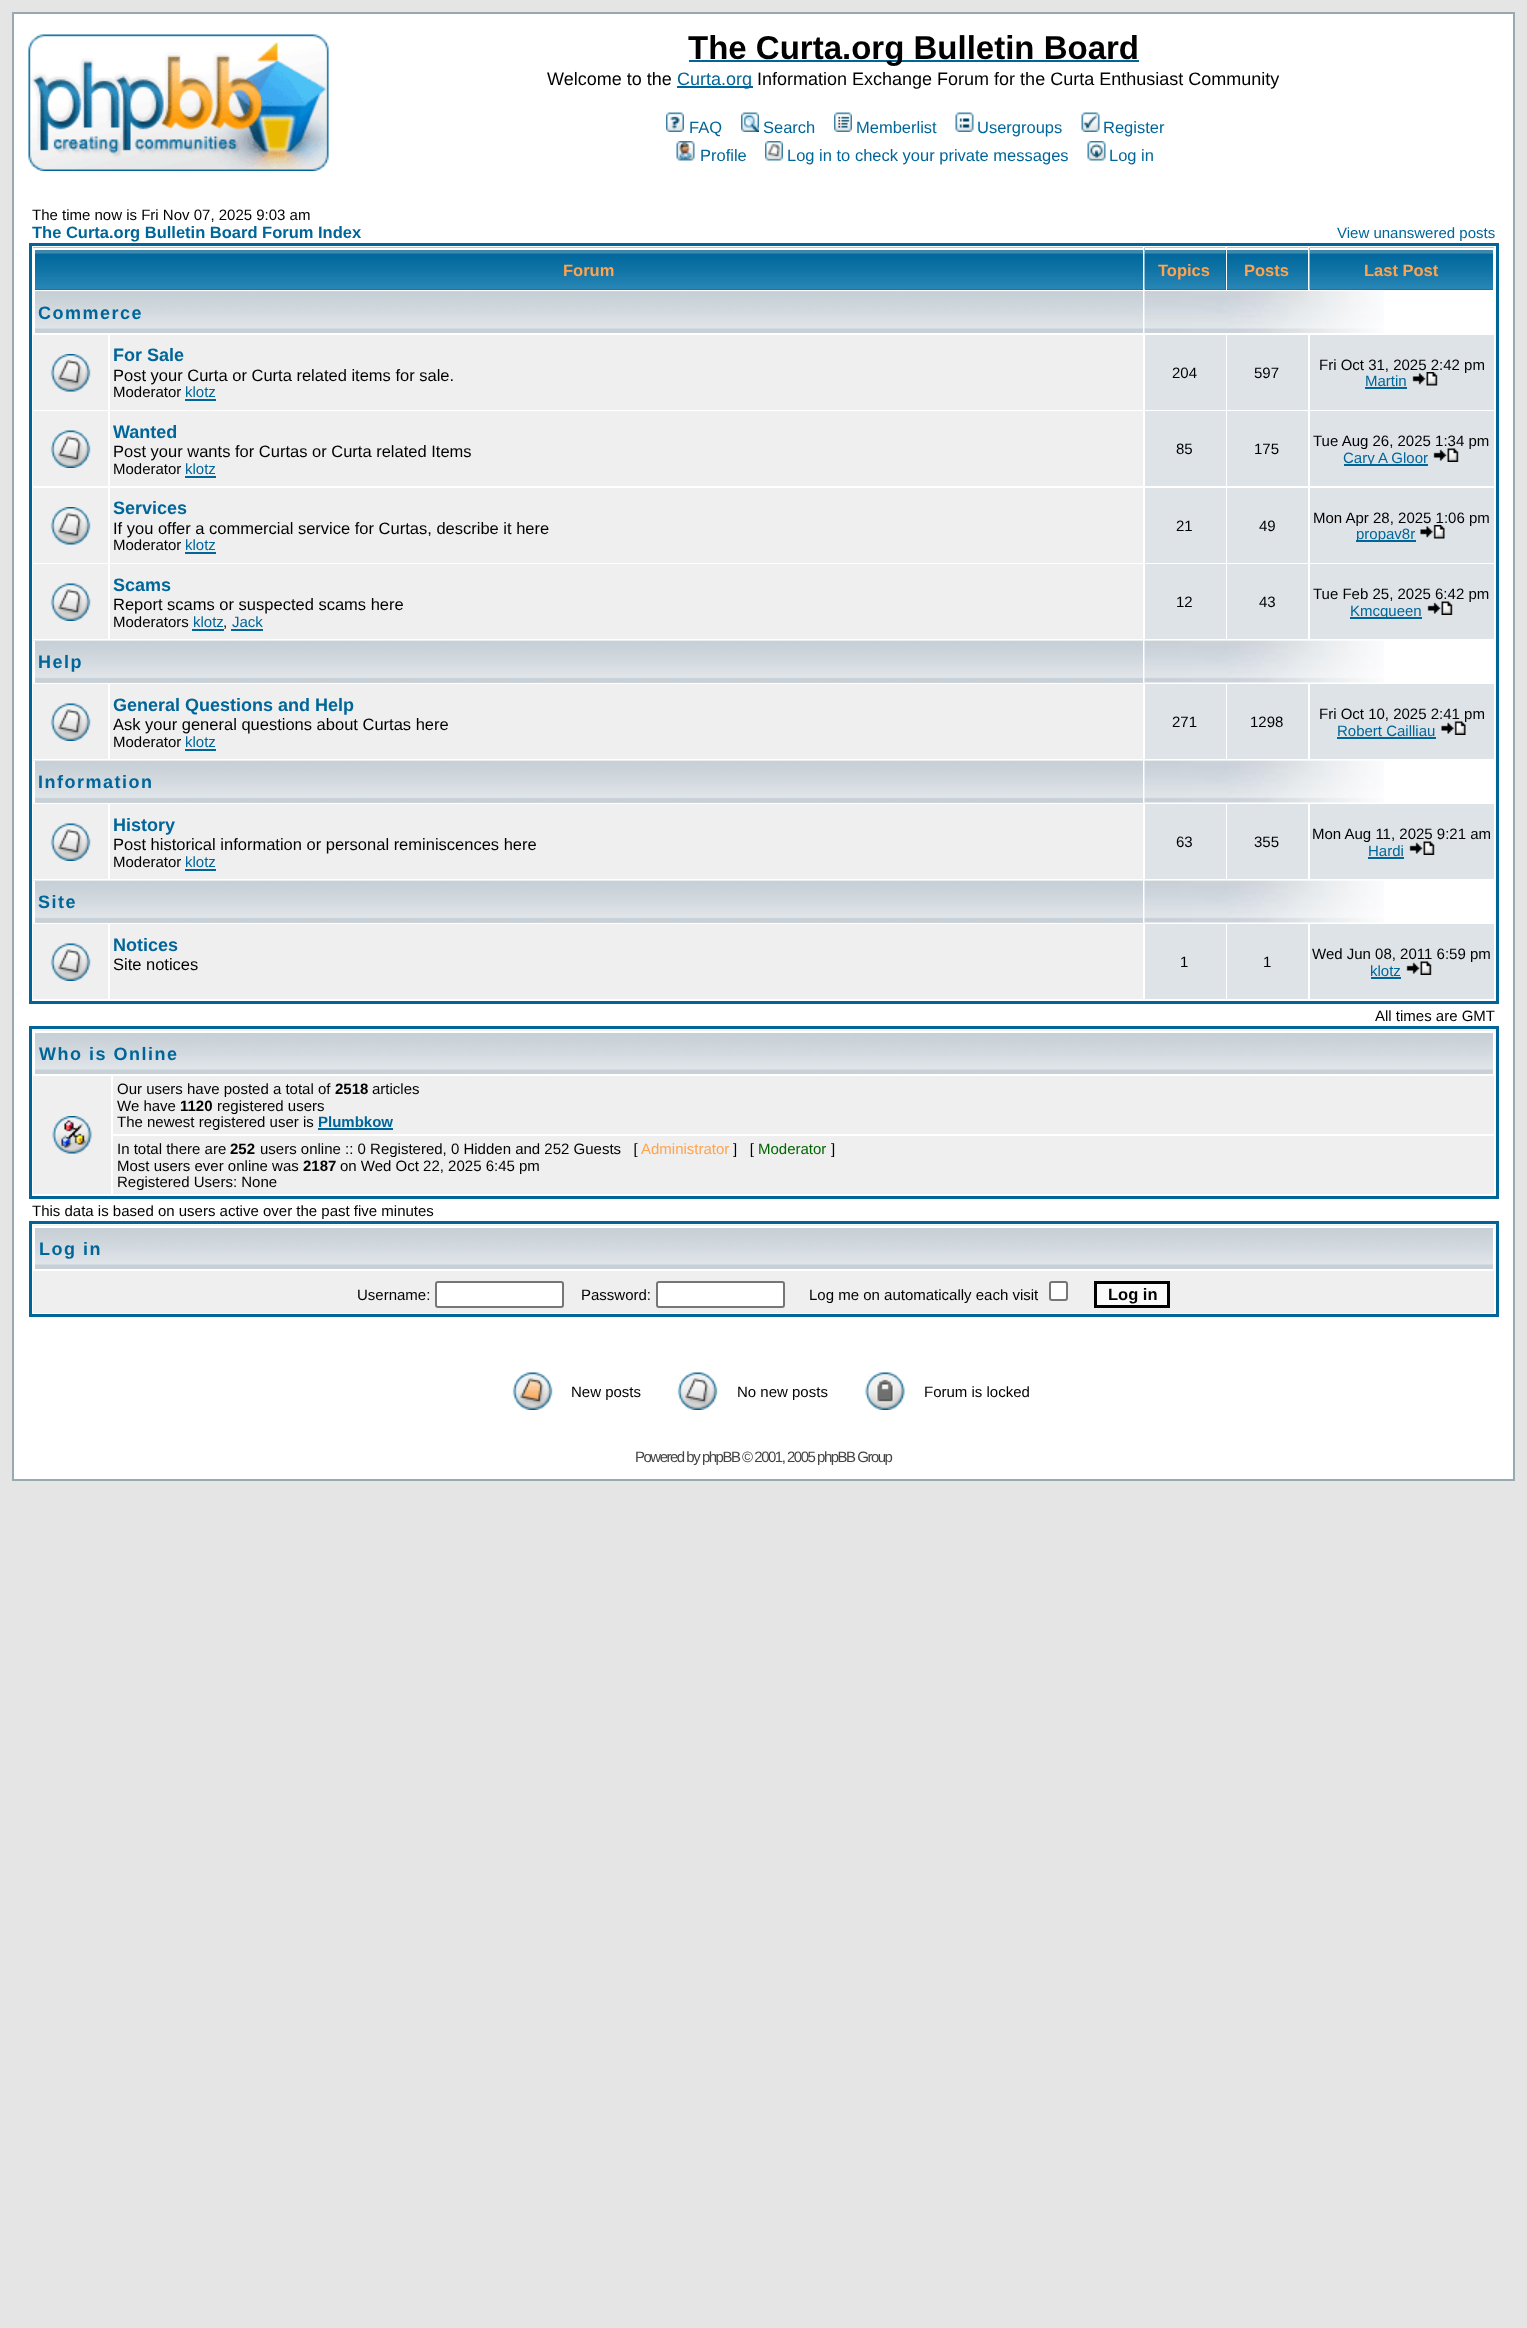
async function draw(canvas) {
  canvas.width = 1527;
  canvas.height = 2328;
  const ctx = canvas.getContext('2d');
  ctx.miterLimit = 4;
  ctx.fontKerning = 'normal';
  function label(s, x, y, font, color) {
    ctx.font = font;
    ctx.fillStyle = color;
    ctx.fillText(s, x, y);
  }
  function rect(x, y, w, h, color) {
    ctx.fillStyle = color;
    ctx.fillRect(x, y, w, h);
  }
  async function image(src, x, y, w, h) {
    const img = new Image();
    img.src = src;
    await img.decode();
    ctx.drawImage(img, x, y, w, h);
  }

  rect(0, 0, 1527, 2328, '#e5e5e5');
  ctx.fillStyle = '#fff';
  ctx.beginPath();
  ctx.rect(13, 13, 1501, 1467);
  ctx.fill();
  ctx.strokeStyle = '#98aab1';
  ctx.lineWidth = 2;
  ctx.stroke();
  await image('assets/img1.png', 28, 34, 301, 137);
  rect(689, 60, 450, 2, '#069');
  label('The Curta.org Bulletin Board', 688, 59, 'bold 33px Liberation Sans', '#000');
  label('Welcome to the', 547, 85, '18px Liberation Sans', '#000');
  rect(677, 86, 76, 2, '#069');
  label('Curta.org', 677, 85, '18px Liberation Sans', '#069');
  label('Information Exchange Forum for the Curta Enthusiast Community', 757, 85, '18px Liberation Sans', '#000');
  await image('assets/img2.png', 666, 112, 18, 20);
  label('FAQ', 689, 133, '16.5px Liberation Sans', '#069');
  await image('assets/img3.png', 741, 112, 18, 20);
  label('Search', 763, 133, '16.5px Liberation Sans', '#069');
  await image('assets/img4.png', 834, 112, 18, 20);
  label('Memberlist', 856, 133, '16.5px Liberation Sans', '#069');
  await image('assets/img5.png', 955, 112, 19, 20);
  label('Usergroups', 977, 133, '16.5px Liberation Sans', '#069');
  await image('assets/img6.png', 1081, 112, 19, 20);
  label('Register', 1103, 133, '16.5px Liberation Sans', '#069');
  await image('assets/img7.png', 676, 141, 19, 20);
  label('Profile', 700, 161, '16.5px Liberation Sans', '#069');
  await image('assets/img8.png', 765, 141, 18, 20);
  label('Log in to check your private messages', 787, 161, '16.5px Liberation Sans', '#069');
  await image('assets/img9.png', 1087, 141, 19, 20);
  label('Log in', 1109, 161, '16.5px Liberation Sans', '#069');
  label('The time now is Fri Nov 07, 2025 9:03 am', 32, 220, '15px Liberation Sans', '#000');
  label('The Curta.org Bulletin Board Forum Index', 32, 238, 'bold 16.5px Liberation Sans', '#069');
  label('View unanswered posts', 1337, 238, '15px Liberation Sans', '#069');
  ctx.strokeStyle = '#069';
  ctx.lineWidth = 3;
  ctx.strokeRect(30.5, 244.5, 1467, 758);
  rect(35, 289, 1108, 1, '#069');
  await image('assets/img10.png', 33, 247, 1110, 43);
  rect(33, 248, 1110, 2, '#fff');
  rect(33, 248, 2, 42, '#fff');
  label('Forum', 563, 276, 'bold 16.5px Liberation Sans', '#ffa34f');
  rect(1145, 250, 81, 40, '#069');
  await image('assets/img11.png', 1144, 247, 82, 43);
  rect(1145, 248, 81, 2, '#fff');
  label('Topics', 1158, 276, 'bold 16.5px Liberation Sans', '#ffa34f');
  rect(1227, 289, 81, 1, '#069');
  await image('assets/img12.png', 1227, 247, 81, 43);
  rect(1227, 248, 81, 2, '#fff');
  label('Posts', 1244, 276, 'bold 16.5px Liberation Sans', '#ffa34f');
  rect(1310, 289, 183, 1, '#069');
  await image('assets/img13.png', 1309, 247, 185, 43);
  rect(1310, 248, 184, 2, '#fff');
  rect(1493, 248, 1, 42, '#fff');
  label('Last Post', 1364, 276, 'bold 16.5px Liberation Sans', '#ffa34f');
  await image('assets/img14.png', 35, 291, 1108, 42);
  ctx.letterSpacing = '1.5px';
  label('Commerce', 38, 319, 'bold 18px Liberation Sans', '#069');
  await image('assets/img15.png', 1144, 291, 240, 42);
  rect(33, 335, 75, 75, '#efefef');
  await image('assets/img16.png', 50, 354, 41, 38);
  rect(110, 335, 1033, 75, '#efefef');
  ctx.letterSpacing = '0px';
  label('For Sale', 113, 361, 'bold 18px Liberation Sans', '#069');
  label('Post your Curta or Curta related items for sale.', 113, 381, '16.5px Liberation Sans', '#000');
  label('Moderator', 113, 397, '15px Liberation Sans', '#000');
  label('klotz', 185, 397, '15px Liberation Sans', '#069');
  rect(185, 399, 31, 2, '#069');
  rect(1145, 335, 81, 75, '#dee3e7');
  label('204', 1172, 378, '15px Liberation Sans', '#000');
  rect(1227, 335, 81, 75, '#dee3e7');
  label('597', 1254, 378, '15px Liberation Sans', '#000');
  rect(1310, 335, 184, 75, '#dee3e7');
  label('Fri Oct 31, 2025 2:42 pm', 1319, 370, '15px Liberation Sans', '#000');
  label('Martin', 1365, 386, '15px Liberation Sans', '#069');
  rect(1365, 387, 42, 2, '#069');
  await image('assets/img17.png', 1412, 372, 26, 14);
  rect(33, 411, 75, 75, '#efefef');
  await image('assets/img18.png', 50, 430, 41, 38);
  rect(110, 411, 1033, 75, '#efefef');
  label('Wanted', 113, 438, 'bold 18px Liberation Sans', '#069');
  label('Post your wants for Curtas or Curta related Items', 113, 457, '16.5px Liberation Sans', '#000');
  label('Moderator', 113, 474, '15px Liberation Sans', '#000');
  label('klotz', 185, 474, '15px Liberation Sans', '#069');
  rect(185, 476, 31, 2, '#069');
  rect(1145, 411, 81, 75, '#dee3e7');
  label('85', 1176, 454, '15px Liberation Sans', '#000');
  rect(1227, 411, 81, 75, '#dee3e7');
  label('175', 1254, 454, '15px Liberation Sans', '#000');
  rect(1310, 411, 184, 75, '#dee3e7');
  label('Tue Aug 26, 2025 1:34 pm', 1313, 446, '15px Liberation Sans', '#000');
  rect(1344, 464, 84, 2, '#069');
  label('Cary A Gloor', 1343, 463, '15px Liberation Sans', '#069');
  await image('assets/img19.png', 1433, 448, 26, 14);
  rect(33, 488, 75, 75, '#efefef');
  await image('assets/img16.png', 50, 507, 41, 38);
  rect(110, 488, 1033, 75, '#efefef');
  label('Services', 113, 514, 'bold 18px Liberation Sans', '#069');
  label('If you offer a commercial service for Curtas, describe it here', 113, 534, '16.5px Liberation Sans', '#000');
  label('Moderator', 113, 550, '15px Liberation Sans', '#000');
  label('klotz', 185, 550, '15px Liberation Sans', '#069');
  rect(185, 552, 31, 2, '#069');
  rect(1145, 488, 81, 75, '#dee3e7');
  label('21', 1176, 531, '15px Liberation Sans', '#000');
  rect(1227, 488, 81, 75, '#dee3e7');
  label('49', 1259, 531, '15px Liberation Sans', '#000');
  rect(1310, 488, 184, 75, '#dee3e7');
  label('Mon Apr 28, 2025 1:06 pm', 1313, 523, '15px Liberation Sans', '#000');
  rect(1356, 540, 60, 2, '#069');
  label('propav8r', 1356, 539, '15px Liberation Sans', '#069');
  await image('assets/img20.png', 1420, 525, 25, 14);
  rect(33, 564, 75, 75, '#efefef');
  await image('assets/img18.png', 50, 583, 41, 38);
  rect(110, 564, 1033, 75, '#efefef');
  label('Scams', 113, 591, 'bold 18px Liberation Sans', '#069');
  label('Report scams or suspected scams here', 113, 610, '16.5px Liberation Sans', '#000');
  label('Moderators', 113, 627, '15px Liberation Sans', '#000');
  label('klotz', 193, 627, '15px Liberation Sans', '#069');
  label(',', 223, 627, '15px Liberation Sans', '#000');
  rect(192, 629, 32, 2, '#069');
  rect(231, 629, 32, 2, '#069');
  label('Jack', 232, 627, '15px Liberation Sans', '#069');
  rect(1145, 564, 81, 75, '#dee3e7');
  label('12', 1176, 607, '15px Liberation Sans', '#000');
  rect(1227, 564, 81, 75, '#dee3e7');
  label('43', 1259, 607, '15px Liberation Sans', '#000');
  rect(1310, 564, 184, 75, '#dee3e7');
  label('Tue Feb 25, 2025 6:42 pm', 1313, 599, '15px Liberation Sans', '#000');
  rect(1350, 617, 72, 2, '#069');
  label('Kmcqueen', 1350, 616, '15px Liberation Sans', '#069');
  await image('assets/img19.png', 1427, 601, 26, 14);
  rect(35, 682, 1108, 1, '#d1d7dc');
  await image('assets/img21.png', 33, 640, 1110, 43);
  rect(33, 641, 2, 42, '#fff');
  ctx.letterSpacing = '1.5px';
  label('Help', 38, 668, 'bold 18px Liberation Sans', '#069');
  await image('assets/img22.png', 1144, 640, 240, 43);
  rect(33, 684, 75, 75, '#efefef');
  await image('assets/img18.png', 50, 703, 41, 38);
  rect(110, 684, 1033, 75, '#efefef');
  ctx.letterSpacing = '0px';
  label('General Questions and Help', 113, 711, 'bold 18px Liberation Sans', '#069');
  label('Ask your general questions about Curtas here', 113, 730, '16.5px Liberation Sans', '#000');
  label('Moderator', 113, 747, '15px Liberation Sans', '#000');
  label('klotz', 185, 747, '15px Liberation Sans', '#069');
  rect(185, 749, 31, 2, '#069');
  rect(1145, 684, 81, 75, '#dee3e7');
  label('271', 1172, 727, '15px Liberation Sans', '#000');
  rect(1227, 684, 81, 75, '#dee3e7');
  label('1298', 1250, 727, '15px Liberation Sans', '#000');
  rect(1310, 684, 184, 75, '#dee3e7');
  label('Fri Oct 10, 2025 2:41 pm', 1319, 719, '15px Liberation Sans', '#000');
  label('Robert Cailliau', 1337, 736, '15px Liberation Sans', '#069');
  rect(1337, 737, 99, 2, '#069');
  await image('assets/img23.png', 1441, 721, 25, 14);
  rect(35, 802, 1108, 1, '#d1d7dc');
  await image('assets/img21.png', 33, 760, 1110, 43);
  rect(33, 761, 2, 42, '#fff');
  ctx.letterSpacing = '1.5px';
  label('Information', 38, 788, 'bold 18px Liberation Sans', '#069');
  await image('assets/img22.png', 1144, 760, 240, 43);
  rect(33, 804, 75, 75, '#efefef');
  await image('assets/img18.png', 50, 823, 41, 38);
  rect(110, 804, 1033, 75, '#efefef');
  ctx.letterSpacing = '0px';
  label('History', 113, 831, 'bold 18px Liberation Sans', '#069');
  label('Post historical information or personal reminiscences here', 113, 850, '16.5px Liberation Sans', '#000');
  label('Moderator', 113, 867, '15px Liberation Sans', '#000');
  label('klotz', 185, 867, '15px Liberation Sans', '#069');
  rect(185, 869, 31, 2, '#069');
  rect(1145, 804, 81, 75, '#dee3e7');
  label('63', 1176, 847, '15px Liberation Sans', '#000');
  rect(1227, 804, 81, 75, '#dee3e7');
  label('355', 1254, 847, '15px Liberation Sans', '#000');
  rect(1310, 804, 184, 75, '#dee3e7');
  label('Mon Aug 11, 2025 9:21 am', 1312, 839, '15px Liberation Sans', '#000');
  label('Hardi', 1368, 856, '15px Liberation Sans', '#069');
  rect(1368, 857, 36, 2, '#069');
  await image('assets/img19.png', 1409, 841, 26, 14);
  rect(35, 922, 1108, 1, '#d1d7dc');
  await image('assets/img21.png', 33, 880, 1110, 43);
  rect(33, 881, 2, 42, '#fff');
  ctx.letterSpacing = '1.5px';
  label('Site', 38, 908, 'bold 18px Liberation Sans', '#069');
  await image('assets/img24.png', 1144, 880, 240, 43);
  rect(33, 924, 75, 75, '#efefef');
  await image('assets/img18.png', 50, 943, 41, 38);
  rect(110, 924, 1033, 75, '#efefef');
  ctx.letterSpacing = '0px';
  label('Notices', 113, 951, 'bold 18px Liberation Sans', '#069');
  label('Site notices', 113, 970, '16.5px Liberation Sans', '#000');
  rect(1145, 924, 81, 75, '#dee3e7');
  label('1', 1180, 967, '15px Liberation Sans', '#000');
  rect(1227, 924, 81, 75, '#dee3e7');
  label('1', 1263, 967, '15px Liberation Sans', '#000');
  rect(1310, 924, 184, 75, '#dee3e7');
  label('Wed Jun 08, 2011 6:59 pm', 1312, 959, '15px Liberation Sans', '#000');
  label('klotz', 1370, 976, '15px Liberation Sans', '#069');
  rect(1371, 977, 30, 2, '#069');
  await image('assets/img19.png', 1406, 961, 26, 14);
  label('All times are GMT', 1375, 1021, '15px Liberation Sans', '#000');
  ctx.strokeRect(30.5, 1027.5, 1467, 170);
  await image('assets/img25.png', 33, 1030, 1461, 44);
  rect(33, 1031, 1461, 2, '#fff');
  rect(1493, 1031, 1, 43, '#fff');
  rect(33, 1031, 2, 43, '#fff');
  ctx.letterSpacing = '1.5px';
  label('Who is Online', 39, 1060, 'bold 18px Liberation Sans', '#069');
  rect(33, 1076, 78, 118, '#efefef');
  await image('assets/img26.png', 52, 1116, 40, 38);
  rect(113, 1076, 1381, 58, '#efefef');
  ctx.letterSpacing = '0px';
  label('Our users have posted a total of', 117, 1094, '15px Liberation Sans', '#000');
  label('2518', 335, 1094, 'bold 15px Liberation Sans', '#000');
  label('articles', 372, 1094, '15px Liberation Sans', '#000');
  label('We have', 117, 1111, '15px Liberation Sans', '#000');
  label('1120', 180, 1111, 'bold 15px Liberation Sans', '#000');
  label('registered users', 217, 1111, '15px Liberation Sans', '#000');
  label('The newest registered user is', 117, 1127, '15px Liberation Sans', '#000');
  label('Plumbkow', 318, 1127, 'bold 15px Liberation Sans', '#069');
  rect(318, 1128, 75, 2, '#069');
  rect(113, 1136, 1381, 58, '#efefef');
  label('In total there are', 117, 1154, '15px Liberation Sans', '#000');
  label('252', 230, 1154, 'bold 15px Liberation Sans', '#000');
  label('users online :: 0 Registered, 0 Hidden and 252 Guests   [', 260, 1154, '15px Liberation Sans', '#000');
  label('Administrator', 641, 1154, '15px Liberation Sans', '#ffa34f');
  label(']   [', 733, 1154, '15px Liberation Sans', '#000');
  label('Moderator', 758, 1154, '15px Liberation Sans', '#060');
  label(']', 831, 1154, '15px Liberation Sans', '#000');
  label('Most users ever online was', 117, 1171, '15px Liberation Sans', '#000');
  label('2187', 303, 1171, 'bold 15px Liberation Sans', '#000');
  label('on Wed Oct 22, 2025 6:45 pm', 340, 1171, '15px Liberation Sans', '#000');
  label('Registered Users: None', 117, 1187, '15px Liberation Sans', '#000');
  label('This data is based on users active over the past five minutes', 32, 1216, '15px Liberation Sans', '#000');
  ctx.strokeRect(30.5, 1222.5, 1467, 93);
  await image('assets/img25.png', 33, 1225, 1461, 44);
  rect(33, 1226, 1461, 2, '#fff');
  rect(1493, 1226, 1, 43, '#fff');
  rect(33, 1226, 2, 43, '#fff');
  ctx.letterSpacing = '1.5px';
  label('Log in', 39, 1255, 'bold 18px Liberation Sans', '#069');
  rect(33, 1271, 1461, 42, '#efefef');
  ctx.letterSpacing = '0px';
  label('Username:', 357, 1300, '15px Liberation Sans', '#000');
  ctx.fillStyle = '#fff';
  ctx.beginPath();
  ctx.roundRect(436, 1282, 127, 25, 2);
  ctx.fill();
  ctx.strokeStyle = '#767676';
  ctx.lineWidth = 2;
  ctx.stroke();
  label('Password:', 581, 1300, '15px Liberation Sans', '#000');
  ctx.fillStyle = '#fff';
  ctx.beginPath();
  ctx.roundRect(657, 1282, 127, 25, 2);
  ctx.fill();
  ctx.stroke();
  label('Log me on automatically each visit', 809, 1300, '15px Liberation Sans', '#000');
  ctx.fillStyle = '#fff';
  ctx.beginPath();
  ctx.roundRect(1050, 1282, 17, 18, 2);
  ctx.fill();
  ctx.stroke();
  ctx.fillStyle = '#fafafa';
  ctx.beginPath();
  ctx.rect(1095.5, 1282.5, 73, 24);
  ctx.fill();
  ctx.strokeStyle = '#000';
  ctx.lineWidth = 3;
  ctx.stroke();
  label('Log in', 1108, 1300, 'bold 16.5px Liberation Sans', '#000');
  await image('assets/img27.png', 512, 1372, 41, 38);
  label('New posts', 571, 1397, '15px Liberation Sans', '#000');
  await image('assets/img28.png', 677, 1372, 41, 38);
  label('No new posts', 737, 1397, '15px Liberation Sans', '#000');
  await image('assets/img29.png', 865, 1372, 40, 38);
  label('Forum is locked', 924, 1397, '15px Liberation Sans', '#000');
  ctx.letterSpacing = '-1.5px';
  label('Powered by phpBB © 2001, 2005 phpBB Group', 635, 1462, '15px Liberation Sans', '#444');
}

draw(document.querySelector('canvas'));
